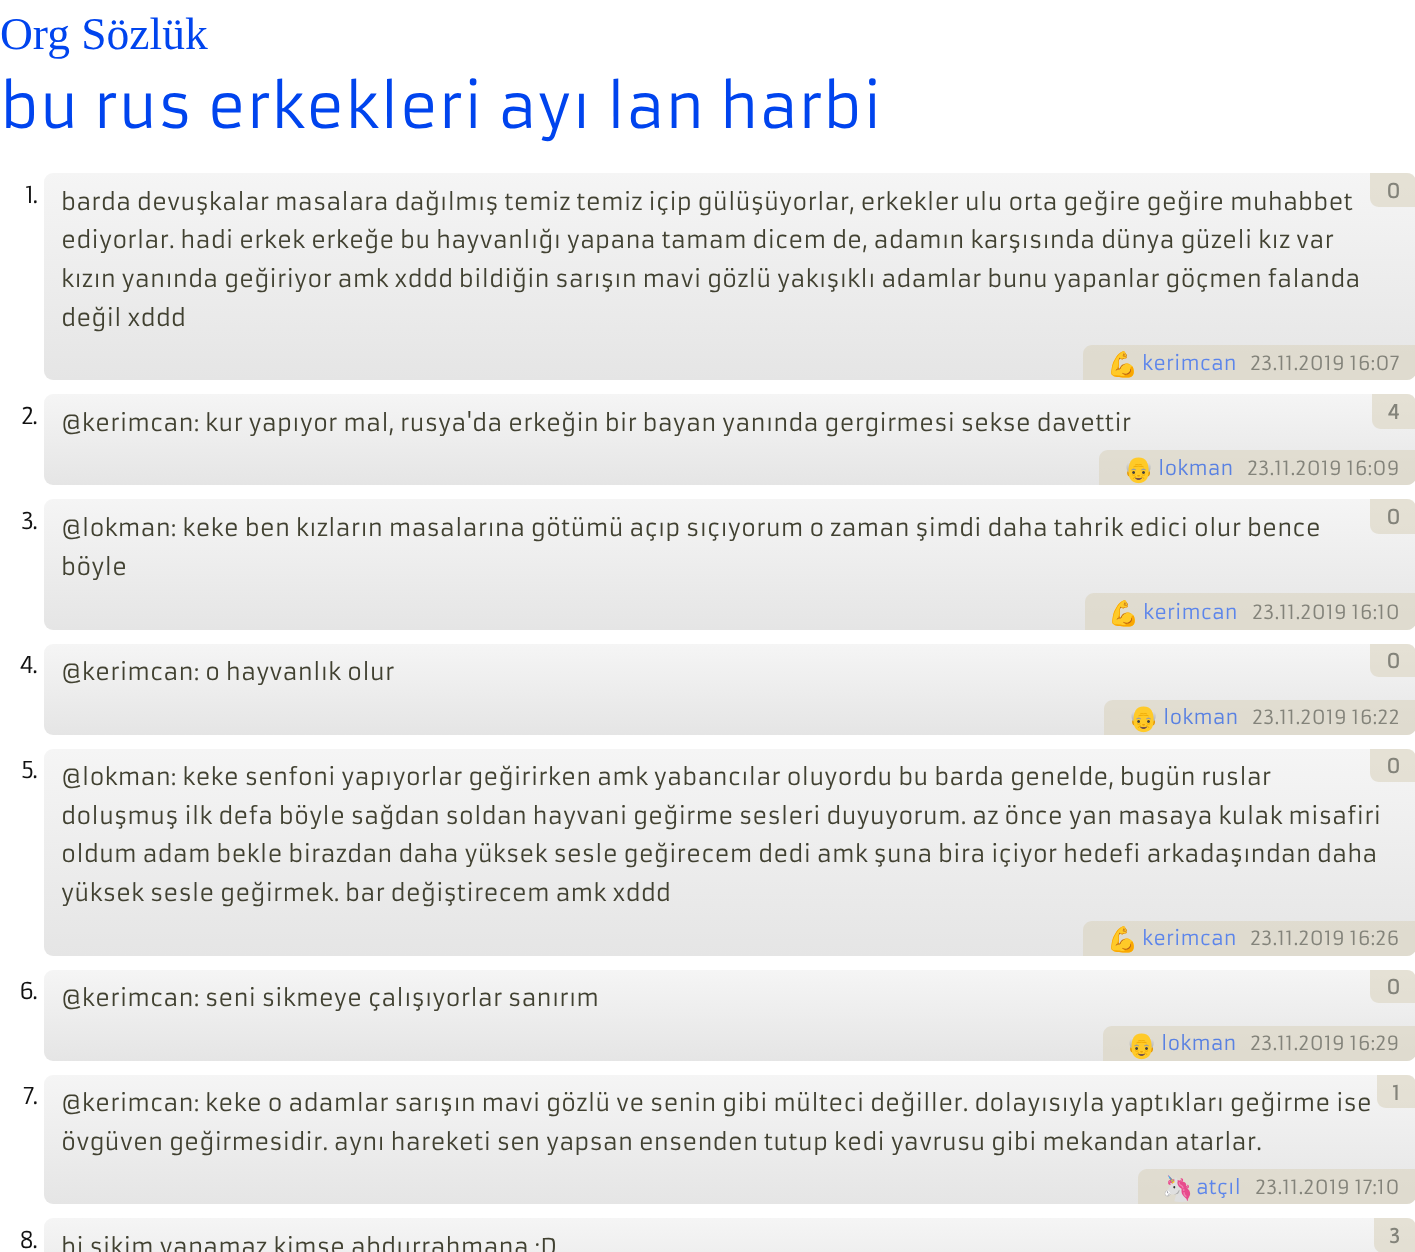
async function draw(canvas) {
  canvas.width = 1415;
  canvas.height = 1252;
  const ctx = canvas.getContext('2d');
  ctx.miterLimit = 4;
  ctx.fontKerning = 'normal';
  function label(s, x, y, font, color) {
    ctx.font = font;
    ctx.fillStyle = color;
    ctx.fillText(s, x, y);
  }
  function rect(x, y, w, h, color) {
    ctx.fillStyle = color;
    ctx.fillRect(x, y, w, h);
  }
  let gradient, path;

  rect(0, 0, 1415, 1252, '#fff');
  label('Org Sözlük', 0, 49, '45.5px Liberation Serif', '#04e');
  label('bu rus erkekleri ayı lan harbi', 0, 128, '59.2px Armata', '#04e');
  gradient = ctx.createLinearGradient(730, 173, 730, 380);
  gradient.addColorStop(0, '#f5f5f5');
  gradient.addColorStop(1, '#e5e5e5');
  ctx.fillStyle = gradient;
  ctx.beginPath();
  ctx.roundRect(44, 173, 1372, 207, 9);
  ctx.fill();
  ctx.letterSpacing = '-2px';
  label('1.', 25, 203, '22.75px Armata', '#111');
  ctx.fillStyle = '#dad3c099';
  path = new Path2D('M1370 173H1407C1412 173 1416 177 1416 182V207H1379C1374 207 1370 203 1370 198Z');
  ctx.fill(path);
  ctx.letterSpacing = '0px';
  label('0', 1386, 198, 'bold 19.25px Armata', '#83837a');
  ctx.fillStyle = '#dad3c099';
  path = new Path2D('M1092 345H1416V371C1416 376 1412 380 1407 380H1083V354C1083 349 1087 345 1092 345Z');
  ctx.fill(path);
  label('💪', 1107, 373, '25px Noto Color Emoji', '#5c85eb');
  label('kerimcan', 1142, 370, '19.25px Armata', '#5c85eb');
  label('23.11.2019 16:07', 1250, 370, '19.25px Armata', '#83837a');
  label('barda devuşkalar masalara dağılmış temiz temiz içip gülüşüyorlar, erkekler ulu orta geğire geğire muhabbet', 61, 210, '22.75px Armata', '#414131');
  label('ediyorlar. hadi erkek erkeğe bu hayvanlığı yapana tamam dicem de, adamın karşısında dünya güzeli kız var', 61, 248, '22.75px Armata', '#414131');
  label('kızın yanında geğiriyor amk xddd bildiğin sarışın mavi gözlü yakışıklı adamlar bunu yapanlar göçmen falanda', 61, 287, '22.75px Armata', '#414131');
  label('değil xddd', 61, 326, '22.75px Armata', '#414131');
  gradient = ctx.createLinearGradient(730, 394, 730, 485);
  gradient.addColorStop(0, '#f5f5f5');
  gradient.addColorStop(1, '#e5e5e5');
  ctx.fillStyle = gradient;
  ctx.beginPath();
  ctx.roundRect(44, 394, 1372, 91, 9);
  ctx.fill();
  ctx.letterSpacing = '-2px';
  label('2.', 21, 424, '22.75px Armata', '#111');
  ctx.letterSpacing = '0px';
  label('@kerimcan: kur yapıyor mal, rusya\'da erkeğin bir bayan yanında gergirmesi sekse davettir', 61, 431, '22.75px Armata', '#414131');
  ctx.fillStyle = '#dad3c099';
  path = new Path2D('M1372 394H1407C1412 394 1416 398 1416 403V429H1381C1376 429 1372 425 1372 420Z');
  ctx.fill(path);
  label('4', 1387, 419, 'bold 19.25px Armata', '#83837a');
  ctx.fillStyle = '#dad3c099';
  path = new Path2D('M1108 450H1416V476C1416 481 1412 485 1407 485H1099V459C1099 454 1103 450 1108 450Z');
  ctx.fill(path);
  label('👴', 1123, 478, '25px Noto Color Emoji', '#5981e2');
  label('lokman', 1158, 475, '19.25px Armata', '#5981e2');
  label('23.11.2019 16:09', 1247, 475, '19.25px Armata', '#83837a');
  gradient = ctx.createLinearGradient(730, 499, 730, 630);
  gradient.addColorStop(0, '#f5f5f5');
  gradient.addColorStop(1, '#e5e5e5');
  ctx.fillStyle = gradient;
  ctx.beginPath();
  ctx.roundRect(44, 499, 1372, 131, 9);
  ctx.fill();
  ctx.letterSpacing = '-2px';
  label('3.', 21, 529, '22.75px Armata', '#111');
  ctx.fillStyle = '#dad3c099';
  path = new Path2D('M1370 499H1407C1412 499 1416 503 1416 508V534H1379C1374 534 1370 530 1370 525Z');
  ctx.fill(path);
  ctx.letterSpacing = '0px';
  label('0', 1386, 524, 'bold 19.25px Armata', '#83837a');
  ctx.fillStyle = '#dad3c099';
  path = new Path2D('M1094 593H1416V621C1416 626 1412 630 1407 630H1085V602C1085 597 1089 593 1094 593Z');
  ctx.fill(path);
  label('💪', 1108, 622, '25px Noto Color Emoji', '#5981e2');
  label('kerimcan', 1143, 619, '19.25px Armata', '#5c85eb');
  label('23.11.2019 16:10', 1252, 619, '19.25px Armata', '#83837a');
  label('@lokman: keke ben kızların masalarına götümü açıp sıçıyorum o zaman şimdi daha tahrik edici olur bence', 61, 536, '22.75px Armata', '#414131');
  label('böyle', 61, 575, '22.75px Armata', '#414131');
  gradient = ctx.createLinearGradient(730, 644, 730, 735);
  gradient.addColorStop(0, '#f5f5f5');
  gradient.addColorStop(1, '#e5e5e5');
  ctx.fillStyle = gradient;
  ctx.beginPath();
  ctx.roundRect(44, 644, 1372, 91, 9);
  ctx.fill();
  ctx.letterSpacing = '-2px';
  label('4.', 19, 673, '22.75px Armata', '#111');
  ctx.letterSpacing = '0px';
  label('@kerimcan: o hayvanlık olur', 61, 680, '22.75px Armata', '#414131');
  ctx.fillStyle = '#dad3c099';
  path = new Path2D('M1370 644H1407C1412 644 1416 648 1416 653V677H1379C1374 677 1370 673 1370 668Z');
  ctx.fill(path);
  label('0', 1386, 668, 'bold 19.25px Armata', '#83837a');
  ctx.fillStyle = '#dad3c099';
  path = new Path2D('M1113 700H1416V726C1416 731 1412 735 1407 735H1104V709C1104 704 1108 700 1113 700Z');
  ctx.fill(path);
  label('👴', 1128, 727, '25px Noto Color Emoji', '#5981e2');
  label('lokman', 1163, 724, '19.25px Armata', '#5981e2');
  label('23.11.2019 16:22', 1252, 724, '19.25px Armata', '#83837a');
  gradient = ctx.createLinearGradient(730, 749, 730, 956);
  gradient.addColorStop(0, '#f5f5f5');
  gradient.addColorStop(1, '#e5e5e5');
  ctx.fillStyle = gradient;
  ctx.beginPath();
  ctx.roundRect(44, 749, 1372, 207, 9);
  ctx.fill();
  ctx.letterSpacing = '-2px';
  label('5.', 21, 778, '22.75px Armata', '#111');
  ctx.fillStyle = '#dad3c099';
  path = new Path2D('M1370 749H1407C1412 749 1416 753 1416 758V782H1379C1374 782 1370 778 1370 773Z');
  ctx.fill(path);
  ctx.letterSpacing = '0px';
  label('0', 1386, 773, 'bold 19.25px Armata', '#83837a');
  ctx.fillStyle = '#dad3c099';
  path = new Path2D('M1092 921H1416V947C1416 952 1412 956 1407 956H1083V930C1083 925 1087 921 1092 921Z');
  ctx.fill(path);
  label('💪', 1107, 948, '25px Noto Color Emoji', '#5c85eb');
  label('kerimcan', 1142, 945, '19.25px Armata', '#5c85eb');
  label('23.11.2019 16:26', 1250, 945, '19.25px Armata', '#83837a');
  label('@lokman: keke senfoni yapıyorlar geğirirken amk yabancılar oluyordu bu barda genelde, bugün ruslar', 61, 785, '22.75px Armata', '#414131');
  label('doluşmuş ilk defa böyle sağdan soldan hayvani geğirme sesleri duyuyorum. az önce yan masaya kulak misafiri', 61, 824, '22.75px Armata', '#414131');
  label('oldum adam bekle birazdan daha yüksek sesle geğirecem dedi amk şuna bira içiyor hedefi arkadaşından daha', 61, 862, '22.75px Armata', '#414131');
  label('yüksek sesle geğirmek. bar değiştirecem amk xddd', 61, 901, '22.75px Armata', '#414131');
  gradient = ctx.createLinearGradient(730, 970, 730, 1061);
  gradient.addColorStop(0, '#f5f5f5');
  gradient.addColorStop(1, '#e5e5e5');
  ctx.fillStyle = gradient;
  ctx.beginPath();
  ctx.roundRect(44, 970, 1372, 91, 9);
  ctx.fill();
  ctx.letterSpacing = '-2px';
  label('6.', 19, 999, '22.75px Armata', '#111');
  ctx.letterSpacing = '0px';
  label('@kerimcan: seni sikmeye çalışıyorlar sanırım', 61, 1006, '22.75px Armata', '#414131');
  ctx.fillStyle = '#dad3c099';
  path = new Path2D('M1370 970H1407C1412 970 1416 974 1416 979V1003H1379C1374 1003 1370 999 1370 994Z');
  ctx.fill(path);
  label('0', 1386, 994, 'bold 19.25px Armata', '#83837a');
  ctx.fillStyle = '#dad3c099';
  path = new Path2D('M1112 1026H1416V1052C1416 1057 1412 1061 1407 1061H1103V1035C1103 1030 1107 1026 1112 1026Z');
  ctx.fill(path);
  label('👴', 1126, 1054, '25px Noto Color Emoji', '#5981e2');
  label('lokman', 1161, 1050, '19.25px Armata', '#5981e2');
  label('23.11.2019 16:29', 1250, 1050, '19.25px Armata', '#83837a');
  gradient = ctx.createLinearGradient(730, 1075, 730, 1204);
  gradient.addColorStop(0, '#f5f5f5');
  gradient.addColorStop(1, '#e5e5e5');
  ctx.fillStyle = gradient;
  ctx.beginPath();
  ctx.roundRect(44, 1075, 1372, 129, 9);
  ctx.fill();
  ctx.letterSpacing = '-2px';
  label('7.', 23, 1104, '22.75px Armata', '#111');
  ctx.fillStyle = '#dad3c099';
  path = new Path2D('M1377 1075H1407C1412 1075 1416 1079 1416 1084V1108H1386C1381 1108 1377 1104 1377 1099Z');
  ctx.fill(path);
  ctx.letterSpacing = '0px';
  label('1', 1392, 1100, 'bold 19.25px Armata', '#83837a');
  ctx.fillStyle = '#dad3c099';
  path = new Path2D('M1147 1169H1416V1195C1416 1200 1412 1204 1407 1204H1138V1178C1138 1173 1142 1169 1147 1169Z');
  ctx.fill(path);
  label('🦄', 1162, 1197, '25px Noto Color Emoji', '#5981e2');
  label('atçıl', 1196, 1194, '19.25px Armata', '#5c85eb');
  label('23.11.2019 17:10', 1255, 1194, '19.25px Armata', '#83837a');
  label('@kerimcan: keke o adamlar sarışın mavi gözlü ve senin gibi mülteci değiller. dolayısıyla yaptıkları geğirme ise', 61, 1111, '22.75px Armata', '#414131');
  label('övgüven geğirmesidir. aynı hareketi sen yapsan ensenden tutup kedi yavrusu gibi mekandan atarlar.', 61, 1150, '22.75px Armata', '#414131');
  gradient = ctx.createLinearGradient(730, 1218, 730, 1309);
  gradient.addColorStop(0, '#f5f5f5');
  gradient.addColorStop(1, '#e5e5e5');
  ctx.fillStyle = gradient;
  ctx.beginPath();
  ctx.roundRect(44, 1218, 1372, 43, 9);
  ctx.fill();
  ctx.letterSpacing = '-2px';
  label('8.', 19, 1248, '22.75px Armata', '#111');
  ctx.letterSpacing = '0px';
  label('bi sikim yapamaz kimse abdurrahmana :D', 61, 1255, '22.75px Armata', '#414131');
  ctx.fillStyle = '#dad3c099';
  path = new Path2D('M1374 1218H1407C1412 1218 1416 1222 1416 1227V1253H1383C1378 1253 1374 1249 1374 1244Z');
  ctx.fill(path);
  label('3', 1389, 1243, 'bold 19.25px Armata', '#83837a');
}

draw(document.querySelector('canvas'));
